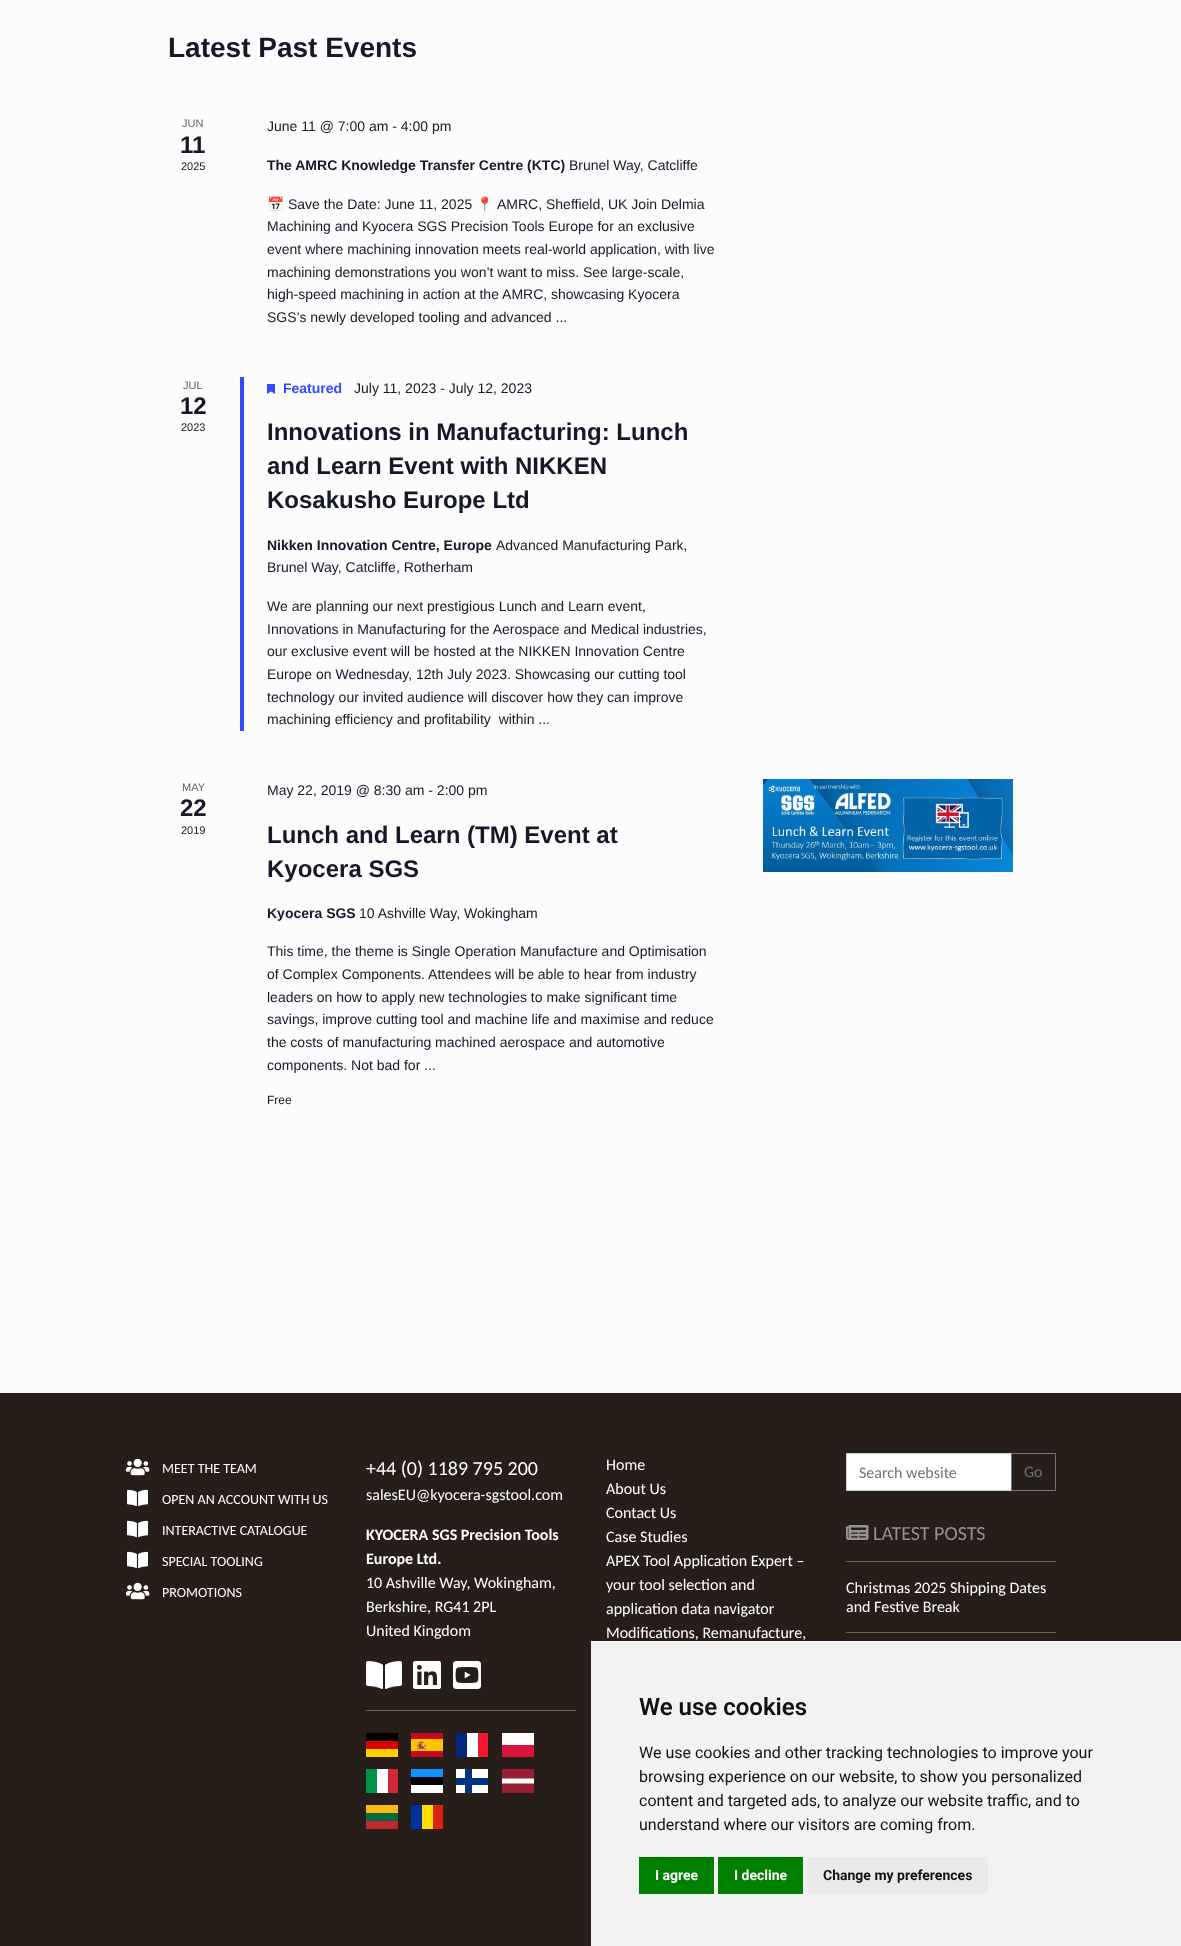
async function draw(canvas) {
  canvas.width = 1181;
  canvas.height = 1946;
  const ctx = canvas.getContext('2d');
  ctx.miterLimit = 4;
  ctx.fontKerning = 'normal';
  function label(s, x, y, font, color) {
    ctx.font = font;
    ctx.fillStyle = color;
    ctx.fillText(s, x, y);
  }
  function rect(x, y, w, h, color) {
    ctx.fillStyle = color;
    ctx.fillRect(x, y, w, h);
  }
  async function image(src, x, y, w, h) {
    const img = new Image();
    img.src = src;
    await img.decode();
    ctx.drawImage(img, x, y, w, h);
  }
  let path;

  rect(0, 0, 1181, 1946, '#fcfcfc');
  label('Latest Past Events', 168, 57, 'bold 28px Liberation Sans', '#141827');
  label('JUN', 182, 127, '11px Liberation Sans', '#5d5d5d');
  label('11', 180, 153, 'bold 24px Liberation Sans', '#141827');
  label('2025', 181, 170, '11px Liberation Sans', '#141827');
  label('June 11 @ 7:00 am - 4:00 pm', 267, 131, '14px Liberation Sans', '#141827');
  label('The AMRC Knowledge Transfer Centre (KTC)', 267, 170, 'bold 14px Liberation Sans', '#141827');
  label('Brunel Way, Catcliffe', 569, 170, '14px Liberation Sans', '#141827');
  label('📅', 267, 209, '14px Noto Color Emoji', '#141827');
  label('Save the Date: June 11, 2025', 288, 209, '14px Liberation Sans', '#141827');
  label('📍', 476, 209, '14px Noto Color Emoji', '#141827');
  label('AMRC, Sheffield, UK Join Delmia', 497, 209, '14px Liberation Sans', '#141827');
  label('Machining and Kyocera SGS Precision Tools Europe for an exclusive', 267, 231, '14px Liberation Sans', '#141827');
  label('event where machining innovation meets real-world application, with live', 267, 254, '14px Liberation Sans', '#141827');
  label('machining demonstrations you won’t want to miss. See large-scale,', 267, 277, '14px Liberation Sans', '#141827');
  label('high-speed machining in action at the AMRC, showcasing Kyocera', 267, 299, '14px Liberation Sans', '#141827');
  label('SGS’s newly developed tooling and advanced ...', 267, 322, '14px Liberation Sans', '#141827');
  label('JUL', 183, 389, '11px Liberation Sans', '#5d5d5d');
  rect(240, 377, 4, 354, '#334aff');
  label('12', 180, 414, 'bold 24px Liberation Sans', '#141827');
  label('2023', 181, 431, '11px Liberation Sans', '#141827');
  await image('assets/img1.png', 267, 384, 8, 10);
  label('Featured', 283, 393, 'bold 14px Liberation Sans', '#334aff');
  label('July 11, 2023 - July 12, 2023', 354, 393, '14px Liberation Sans', '#141827');
  label('Innovations in Manufacturing: Lunch', 267, 440, 'bold 24px Liberation Sans', '#141827');
  label('and Learn Event with NIKKEN', 267, 474, 'bold 24px Liberation Sans', '#141827');
  label('Kosakusho Europe Ltd', 267, 508, 'bold 24px Liberation Sans', '#141827');
  label('Nikken Innovation Centre, Europe', 267, 550, 'bold 14px Liberation Sans', '#141827');
  label('Advanced Manufacturing Park,', 496, 550, '14px Liberation Sans', '#141827');
  label('Brunel Way, Catcliffe, Rotherham', 267, 572, '14px Liberation Sans', '#141827');
  label('We are planning our next prestigious Lunch and Learn event,', 267, 611, '14px Liberation Sans', '#141827');
  label('Innovations in Manufacturing for the Aerospace and Medical industries,', 267, 634, '14px Liberation Sans', '#141827');
  label('our exclusive event will be hosted at the NIKKEN Innovation Centre', 267, 656, '14px Liberation Sans', '#141827');
  label('Europe on Wednesday, 12th July 2023. Showcasing our cutting tool', 267, 679, '14px Liberation Sans', '#141827');
  label('technology our invited audience will discover how they can improve', 267, 702, '14px Liberation Sans', '#141827');
  label('machining efficiency and profitability  within ...', 267, 724, '14px Liberation Sans', '#141827');
  label('MAY', 182, 791, '11px Liberation Sans', '#5d5d5d');
  label('22', 180, 816, 'bold 24px Liberation Sans', '#141827');
  label('2019', 181, 834, '11px Liberation Sans', '#141827');
  label('May 22, 2019 @ 8:30 am - 2:00 pm', 267, 795, '14px Liberation Sans', '#141827');
  label('Lunch and Learn (TM) Event at', 267, 843, 'bold 24px Liberation Sans', '#141827');
  label('Kyocera SGS', 267, 877, 'bold 24px Liberation Sans', '#141827');
  label('Kyocera SGS', 267, 918, 'bold 14px Liberation Sans', '#141827');
  label('10 Ashville Way, Wokingham', 359, 918, '14px Liberation Sans', '#141827');
  label('This time, the theme is Single Operation Manufacture and Optimisation', 267, 956, '14px Liberation Sans', '#141827');
  label('of Complex Components. Attendees will be able to hear from industry', 267, 979, '14px Liberation Sans', '#141827');
  label('leaders on how to apply new technologies to make significant time', 267, 1002, '14px Liberation Sans', '#141827');
  label('savings, improve cutting tool and machine life and maximise and reduce', 267, 1024, '14px Liberation Sans', '#141827');
  label('the costs of manufacturing machined aerospace and automotive', 267, 1047, '14px Liberation Sans', '#141827');
  label('components. Not bad for ...', 267, 1070, '14px Liberation Sans', '#141827');
  label('Free', 267, 1104, '12px Liberation Sans', '#141827');
  await image('assets/img2.png', 763, 779, 250, 93);
  rect(0, 1393, 1181, 553, '#271d19');
  await image('assets/img3.png', 126, 1458, 24, 18);
  label('MEET THE TEAM', 162, 1473, '14px Carlito', '#fff');
  await image('assets/img4.png', 127, 1489, 21, 18);
  label('OPEN AN ACCOUNT WITH US', 162, 1504, '14px Carlito', '#fff');
  await image('assets/img4.png', 127, 1520, 21, 18);
  label('INTERACTIVE CATALOGUE', 162, 1535, '14px Carlito', '#fff');
  await image('assets/img4.png', 127, 1551, 21, 18);
  label('SPECIAL TOOLING', 162, 1566, '14px Carlito', '#fff');
  await image('assets/img3.png', 126, 1582, 24, 18);
  label('PROMOTIONS', 162, 1597, '14px Carlito', '#fff');
  label('+44 (0) 1189 795 200', 366, 1475, '20px Carlito', '#fff');
  label('salesEU@kyocera-sgstool.com', 366, 1500, '16px Carlito', '#fff');
  label('KYOCERA SGS Precision Tools', 366, 1540, 'bold 16px Carlito', '#fff');
  label('Europe Ltd.', 366, 1564, 'bold 16px Carlito', '#fff');
  label('10 Ashville Way, Wokingham,', 366, 1588, '16px Carlito', '#fff');
  label('Berkshire, RG41 2PL', 366, 1612, '16px Carlito', '#fff');
  label('United Kingdom', 366, 1636, '16px Carlito', '#fff');
  await image('assets/img5.png', 366, 1661, 36, 28);
  await image('assets/img6.png', 413, 1661, 28, 28);
  await image('assets/img7.png', 453, 1661, 28, 28);
  rect(366, 1710, 210, 1, '#68615e');
  rect(366, 1749, 32, 8, '#ffce00');
  rect(366, 1733, 32, 8, '#000');
  rect(366, 1741, 32, 8, '#d00');
  await image('assets/img8.png', 411, 1733, 32, 24);
  rect(467, 1733, 11, 24, '#fff');
  rect(456, 1733, 11, 24, '#00267f');
  rect(478, 1733, 10, 24, '#f31830');
  rect(502, 1733, 32, 12, '#fff');
  rect(502, 1745, 32, 12, '#dc143c');
  rect(377, 1769, 11, 24, '#fff');
  rect(366, 1769, 11, 24, '#009246');
  rect(388, 1769, 10, 24, '#ce2b37');
  rect(411, 1777, 32, 8, '#000');
  rect(411, 1785, 32, 8, '#fff');
  rect(411, 1769, 32, 8, '#1291ff');
  rect(456, 1769, 32, 24, '#fff');
  rect(456, 1778, 32, 7, '#003580');
  rect(465, 1769, 7, 24, '#003580');
  rect(502, 1778, 32, 6, '#fff');
  ctx.fillStyle = '#981e32';
  path = new Path2D('M502 1769H534V1778.5H502ZM502 1783.5H534V1793H502Z');
  ctx.fill(path, 'evenodd');
  rect(366, 1813, 32, 8, '#006a44');
  rect(366, 1821, 32, 8, '#c1272d');
  rect(366, 1805, 32, 8, '#fdb913');
  rect(411, 1805, 11, 24, '#00319c');
  rect(422, 1805, 11, 24, '#ffde00');
  rect(433, 1805, 10, 24, '#de2110');
  label('Home', 606, 1470, '16px Carlito', '#fff');
  label('About Us', 606, 1494, '16px Carlito', '#fff');
  label('Contact Us', 606, 1518, '16px Carlito', '#fff');
  label('Case Studies', 606, 1542, '16px Carlito', '#fff');
  label('APEX Tool Application Expert –', 606, 1566, '16px Carlito', '#fff');
  label('your tool selection and', 606, 1590, '16px Carlito', '#fff');
  label('application data navigator', 606, 1614, '16px Carlito', '#fff');
  label('Modifications, Remanufacture,', 606, 1638, '16px Carlito', '#fff');
  ctx.beginPath();
  ctx.rect(846.5, 1453.5, 165, 37);
  ctx.fill();
  ctx.strokeStyle = '#ced4da';
  ctx.stroke();
  label('Search website', 859, 1478, '16px Carlito', '#6c757d');
  ctx.strokeStyle = '#6c757d';
  ctx.strokeRect(1011.5, 1453.5, 44, 37);
  label('Go', 1024, 1477, '16px Carlito', '#6c757d');
  await image('assets/img9.png', 846, 1525, 23, 15);
  label('LATEST POSTS', 873, 1540, '20px Carlito', '#969291');
  rect(846, 1561, 210, 1, '#68615e');
  label('Christmas 2025 Shipping Dates', 846, 1593, '16px Carlito', '#fff');
  label('and Festive Break', 846, 1612, '16px Carlito', '#fff');
  rect(846, 1632, 210, 1, '#68615e');
  rect(591, 1641, 590, 305, '#f2f2f2');
  label('We use cookies', 639, 1715, '600 24px Roboto', '#111');
  label('We use cookies and other tracking technologies to improve your', 639, 1758, '16px Roboto', '#111');
  label('browsing experience on our website, to show you personalized', 639, 1782, '16px Roboto', '#111');
  label('content and targeted ads, to analyze our website traffic, and to', 639, 1806, '16px Roboto', '#111');
  label('understand where our visitors are coming from.', 639, 1830, '16px Roboto', '#111');
  rect(639, 1857, 75, 37, '#008000');
  label('I agree', 655, 1880, 'bold 14px Roboto', '#fff');
  rect(718, 1857, 85, 37, '#008000');
  label('I decline', 734, 1880, 'bold 14px Roboto', '#fff');
  rect(807, 1857, 181, 37, '#eaeaea');
  label('Change my preferences', 823, 1880, 'bold 14px Roboto', '#111');
}

draw(document.querySelector('canvas'));
